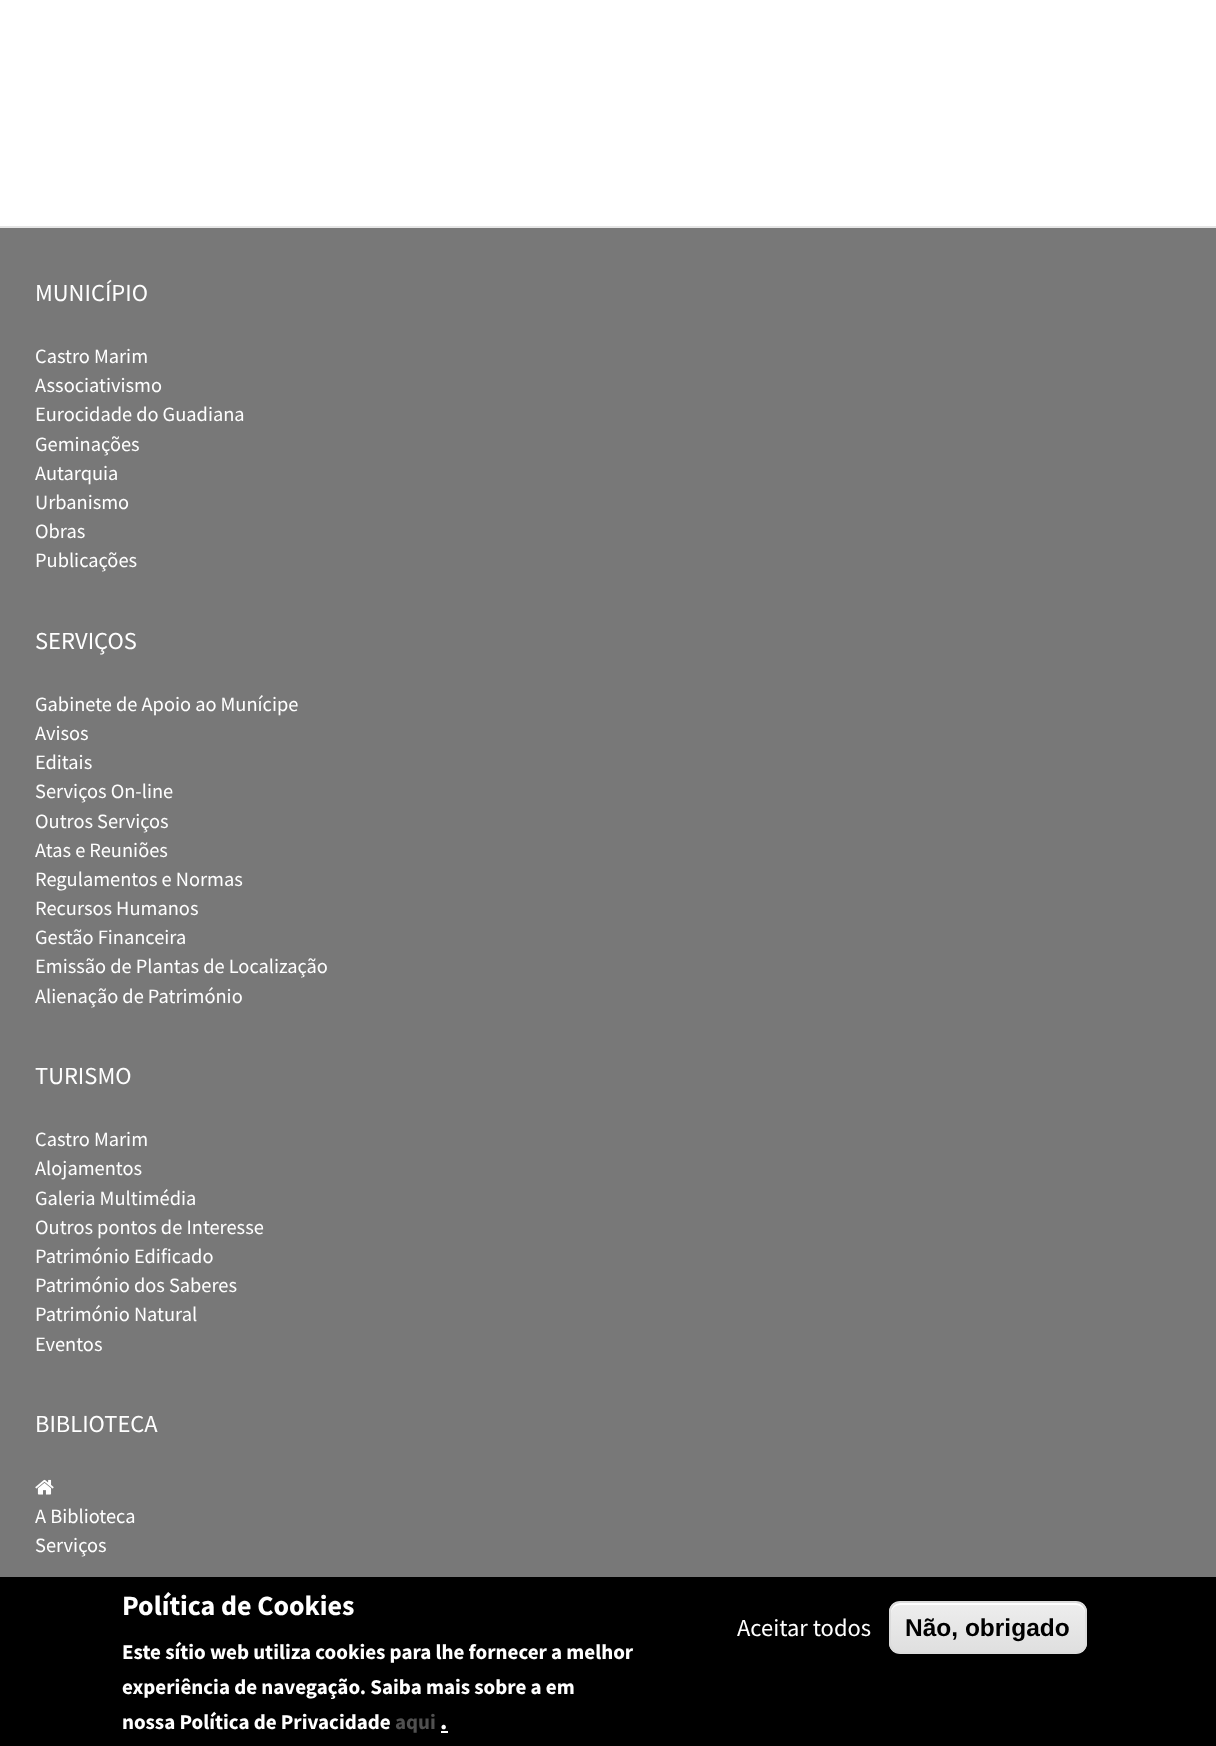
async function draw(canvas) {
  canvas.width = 1216;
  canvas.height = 1746;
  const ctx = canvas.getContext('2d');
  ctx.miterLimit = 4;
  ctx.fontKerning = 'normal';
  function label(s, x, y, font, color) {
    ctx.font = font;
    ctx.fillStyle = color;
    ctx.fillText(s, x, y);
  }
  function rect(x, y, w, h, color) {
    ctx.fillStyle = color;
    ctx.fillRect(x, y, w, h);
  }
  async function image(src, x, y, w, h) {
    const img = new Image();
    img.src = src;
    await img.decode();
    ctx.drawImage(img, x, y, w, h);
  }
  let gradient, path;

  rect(0, 0, 1216, 1746, '#fff');
  rect(0, 228, 1216, 1349, '#787878');
  rect(0, 226, 1216, 2, '#e5e5e5');
  label('MUNICÍPIO', 35, 301, '24.5px Source Sans Pro', '#fff');
  label('Castro Marim', 35, 363, '20.4px Source Sans Pro', '#fff');
  label('Associativismo', 35, 392, '20.4px Source Sans Pro', '#fff');
  label('Eurocidade do Guadiana', 35, 421, '20.4px Source Sans Pro', '#fff');
  label('Geminações', 35, 451, '20.4px Source Sans Pro', '#fff');
  label('Autarquia', 35, 480, '20.4px Source Sans Pro', '#fff');
  label('Urbanismo', 35, 509, '20.4px Source Sans Pro', '#fff');
  label('Obras', 35, 538, '20.4px Source Sans Pro', '#fff');
  label('Publicações', 35, 567, '20.4px Source Sans Pro', '#fff');
  label('SERVIÇOS', 35, 649, '24.5px Source Sans Pro', '#fff');
  label('Gabinete de Apoio ao Munícipe', 35, 711, '20.4px Source Sans Pro', '#fff');
  label('Avisos', 35, 740, '20.4px Source Sans Pro', '#fff');
  label('Editais', 35, 769, '20.4px Source Sans Pro', '#fff');
  label('Serviços On-line', 35, 798, '20.4px Source Sans Pro', '#fff');
  label('Outros Serviços', 35, 828, '20.4px Source Sans Pro', '#fff');
  label('Atas e Reuniões', 35, 857, '20.4px Source Sans Pro', '#fff');
  label('Regulamentos e Normas', 35, 886, '20.4px Source Sans Pro', '#fff');
  label('Recursos Humanos', 35, 915, '20.4px Source Sans Pro', '#fff');
  label('Gestão Financeira', 35, 944, '20.4px Source Sans Pro', '#fff');
  label('Emissão de Plantas de Localização', 35, 973, '20.4px Source Sans Pro', '#fff');
  label('Alienação de Património', 35, 1003, '20.4px Source Sans Pro', '#fff');
  label('TURISMO', 35, 1084, '24.5px Source Sans Pro', '#fff');
  label('Castro Marim', 35, 1146, '20.4px Source Sans Pro', '#fff');
  label('Alojamentos', 35, 1175, '20.4px Source Sans Pro', '#fff');
  label('Galeria Multimédia', 35, 1205, '20.4px Source Sans Pro', '#fff');
  label('Outros pontos de Interesse', 35, 1234, '20.4px Source Sans Pro', '#fff');
  label('Património Edificado', 35, 1263, '20.4px Source Sans Pro', '#fff');
  label('Património dos Saberes', 35, 1292, '20.4px Source Sans Pro', '#fff');
  label('Património Natural', 35, 1321, '20.4px Source Sans Pro', '#fff');
  label('Eventos', 35, 1351, '20.4px Source Sans Pro', '#fff');
  label('BIBLIOTECA', 35, 1432, '24.5px Source Sans Pro', '#fff');
  await image('assets/img1.png', 35, 1479, 19, 16);
  label('A Biblioteca', 35, 1523, '20.4px Source Sans Pro', '#fff');
  label('Serviços', 35, 1552, '20.4px Source Sans Pro', '#fff');
  rect(0, 1577, 1216, 169, '#000');
  label('Política de Cookies', 122, 1615, 'bold 28px Source Sans Pro', '#fff');
  label('Este sítio web utiliza cookies para lhe fornecer a melhor', 122, 1659, 'bold 21px Source Sans Pro', '#fff');
  label('experiência de navegação. Saiba mais sobre a em', 122, 1694, 'bold 21px Source Sans Pro', '#fff');
  label('nossa Política de Privacidade', 122, 1729, 'bold 21px Source Sans Pro', '#fff');
  label('aqui', 395, 1729, 'bold 21px Source Sans Pro', '#505050');
  label('.', 440, 1729, 'bold 24.5px Source Sans Pro', '#fff');
  rect(441, 1731, 7, 2, '#fff');
  label('Aceitar todos', 737, 1636, '24.5px Source Sans Pro', '#fff');
  ctx.save();
  ctx.beginPath();
  ctx.roundRect(889, 1601, 198, 53, 11);
  ctx.clip();
  gradient = ctx.createLinearGradient(988, 1603, 988, 1652);
  gradient.addColorStop(0.05, '#ededed');
  gradient.addColorStop(1, '#dfdfdf');
  ctx.fillStyle = gradient;
  ctx.fillRect(889, 1603, 198, 49);
  ctx.restore();
  path = new Path2D('M900 1605H1076C1081 1605 1085 1609 1085 1614V1612C1085 1607 1081 1603 1076 1603H900C895 1603 891 1607 891 1612V1614C891 1609 895 1605 900 1605Z');
  ctx.fill(path);
  ctx.beginPath();
  ctx.roundRect(890, 1602, 196, 51, 10);
  ctx.strokeStyle = '#dcdcdc';
  ctx.lineWidth = 2;
  ctx.stroke();
  label('Não, obrigado', 905, 1636, 'bold 24.5px Liberation Sans', '#000');
}

draw(document.querySelector('canvas'));
